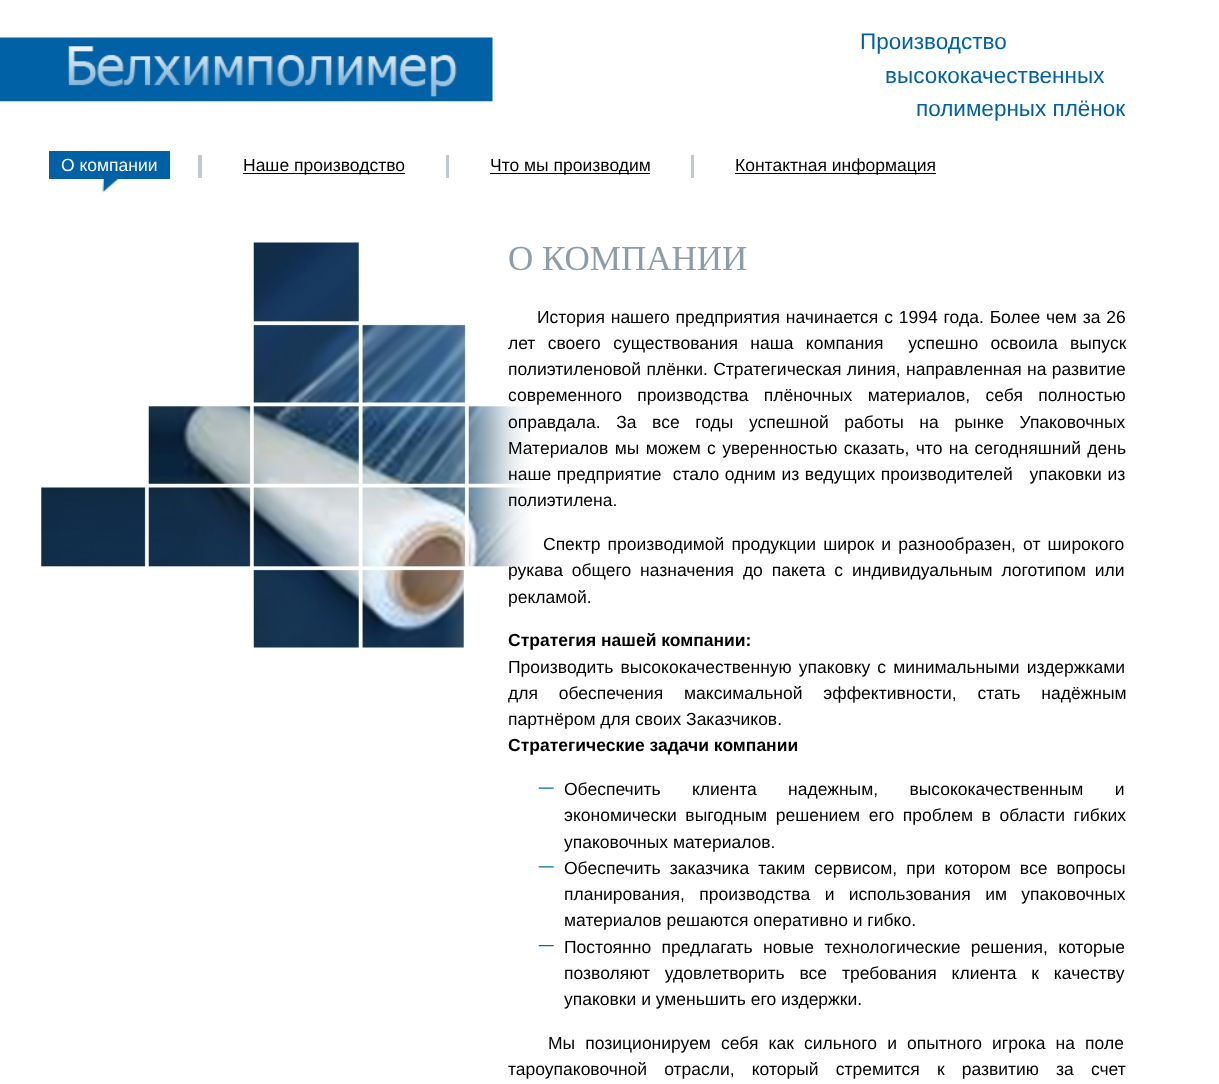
async function draw(canvas) {
  canvas.width = 1219;
  canvas.height = 1084;
  const ctx = canvas.getContext('2d');
  ctx.miterLimit = 4;
  ctx.fontKerning = 'normal';
  function label(s, x, y, font, color) {
    ctx.font = font;
    ctx.fillStyle = color;
    ctx.fillText(s, x, y);
  }
  function rect(x, y, w, h, color) {
    ctx.fillStyle = color;
    ctx.fillRect(x, y, w, h);
  }
  async function image(src, x, y, w, h) {
    const img = new Image();
    img.src = src;
    await img.decode();
    ctx.drawImage(img, x, y, w, h);
  }

  rect(0, 0, 1219, 1084, '#fff');
  await image('assets/img1.png', 0, 37, 493, 65);
  label('Производство', 860, 49, '22.5px Liberation Sans', '#0061a7');
  label('высококачественных', 885, 83, '22.5px Liberation Sans', '#0061a7');
  label('полимерных плёнок', 916, 116, '22.5px Liberation Sans', '#0061a7');
  await image('assets/img2.png', 102, 179, 17, 14);
  rect(49, 151, 121, 28, '#0061a7');
  label('О компании', 61, 171, '17.5px Liberation Sans', '#fff');
  rect(198, 155, 4, 23, '#c1c9d0');
  rect(243, 173, 162, 1, '#000');
  label('Наше производство', 243, 171, '17.5px Liberation Sans', '#000');
  rect(446, 155, 3, 23, '#c1c9d0');
  rect(490, 173, 160, 1, '#000');
  label('Что мы производим', 490, 171, '17.5px Liberation Sans', '#000');
  rect(691, 155, 3, 23, '#c1c9d0');
  rect(735, 173, 201, 1, '#000');
  label('Контактная информация', 735, 171, '17.5px Liberation Sans', '#000');
  await image('assets/img3.png', 41, 242, 490, 406);
  label('О КОМПАНИИ', 508, 270, '35px Liberation Serif', '#8d9ca9');
  ctx.wordSpacing = '1px';
  label('История нашего предприятия начинается с 1994 года. Более чем за 26', 537, 323, '17.5px Liberation Sans', '#000');
  ctx.wordSpacing = '7.5px';
  label('лет своего существования наша компания  успешно освоила выпуск', 508, 349, '17.5px Liberation Sans', '#000');
  ctx.wordSpacing = '0.5px';
  label('полиэтиленовой плёнки. Стратегическая линия, направленная на развитие', 508, 375, '17.5px Liberation Sans', '#000');
  ctx.wordSpacing = '10.5px';
  label('современного производства плёночных материалов, себя полностью', 508, 401, '17.5px Liberation Sans', '#000');
  ctx.wordSpacing = '10.75px';
  label('оправдала. За все годы успешной работы на рынке Упаковочных', 508, 428, '17.5px Liberation Sans', '#000');
  ctx.wordSpacing = '1.5px';
  label('Материалов мы можем с уверенностью сказать, что на сегодняшний день', 508, 454, '17.5px Liberation Sans', '#000');
  ctx.wordSpacing = '0.75px';
  label('наше предприятие  стало одним из ведущих производителей   упаковки из', 508, 480, '17.5px Liberation Sans', '#000');
  ctx.wordSpacing = '0px';
  label('полиэтилена.', 508, 506, '17.5px Liberation Sans', '#000');
  ctx.wordSpacing = '2.25px';
  label('Спектр производимой продукции широк и разнообразен, от широкого', 543, 550, '17.5px Liberation Sans', '#000');
  ctx.wordSpacing = '4px';
  label('рукава общего назначения до пакета с индивидуальным логотипом или', 508, 576, '17.5px Liberation Sans', '#000');
  ctx.wordSpacing = '0px';
  label('рекламой.', 508, 603, '17.5px Liberation Sans', '#000');
  label('Стратегия нашей компании:', 508, 646, 'bold 17.5px Liberation Sans', '#000');
  ctx.wordSpacing = '2.25px';
  label('Производить высококачественную упаковку с минимальными издержками', 508, 673, '17.5px Liberation Sans', '#000');
  ctx.wordSpacing = '16px';
  label('для обеспечения максимальной эффективности, стать надёжным', 508, 699, '17.5px Liberation Sans', '#000');
  ctx.wordSpacing = '0px';
  label('партнёром для своих Заказчиков.', 508, 725, '17.5px Liberation Sans', '#000');
  label('Стратегические задачи компании', 508, 751, 'bold 17.5px Liberation Sans', '#000');
  await image('assets/img4.png', 538, 787, 16, 2);
  ctx.wordSpacing = '26.5px';
  label('Обеспечить клиента надежным, высококачественным и', 564, 795, '17.5px Liberation Sans', '#000');
  ctx.wordSpacing = '3.75px';
  label('экономически выгодным решением его проблем в области гибких', 564, 821, '17.5px Liberation Sans', '#000');
  ctx.wordSpacing = '0px';
  label('упаковочных материалов.', 564, 848, '17.5px Liberation Sans', '#000');
  await image('assets/img5.png', 538, 866, 16, 2);
  ctx.wordSpacing = '4.25px';
  label('Обеспечить заказчика таким сервисом, при котором все вопросы', 564, 874, '17.5px Liberation Sans', '#000');
  ctx.wordSpacing = '9.5px';
  label('планирования, производства и использования им упаковочных', 564, 900, '17.5px Liberation Sans', '#000');
  ctx.wordSpacing = '0px';
  label('материалов решаются оперативно и гибко.', 564, 926, '17.5px Liberation Sans', '#000');
  await image('assets/img6.png', 538, 945, 16, 2);
  ctx.wordSpacing = '5.5px';
  label('Постоянно предлагать новые технологические решения, которые', 564, 953, '17.5px Liberation Sans', '#000');
  ctx.wordSpacing = '10px';
  label('позволяют удовлетворить все требования клиента к качеству', 564, 979, '17.5px Liberation Sans', '#000');
  ctx.wordSpacing = '0px';
  label('упаковки и уменьшить его издержки.', 564, 1005, '17.5px Liberation Sans', '#000');
  ctx.wordSpacing = '5.25px';
  label('Мы позиционируем себя как сильного и опытного игрока на поле', 548, 1049, '17.5px Liberation Sans', '#000');
  ctx.wordSpacing = '12.25px';
  label('тароупаковочной отрасли, который стремится к развитию за счет', 508, 1075, '17.5px Liberation Sans', '#000');
}

draw(document.querySelector('canvas'));
